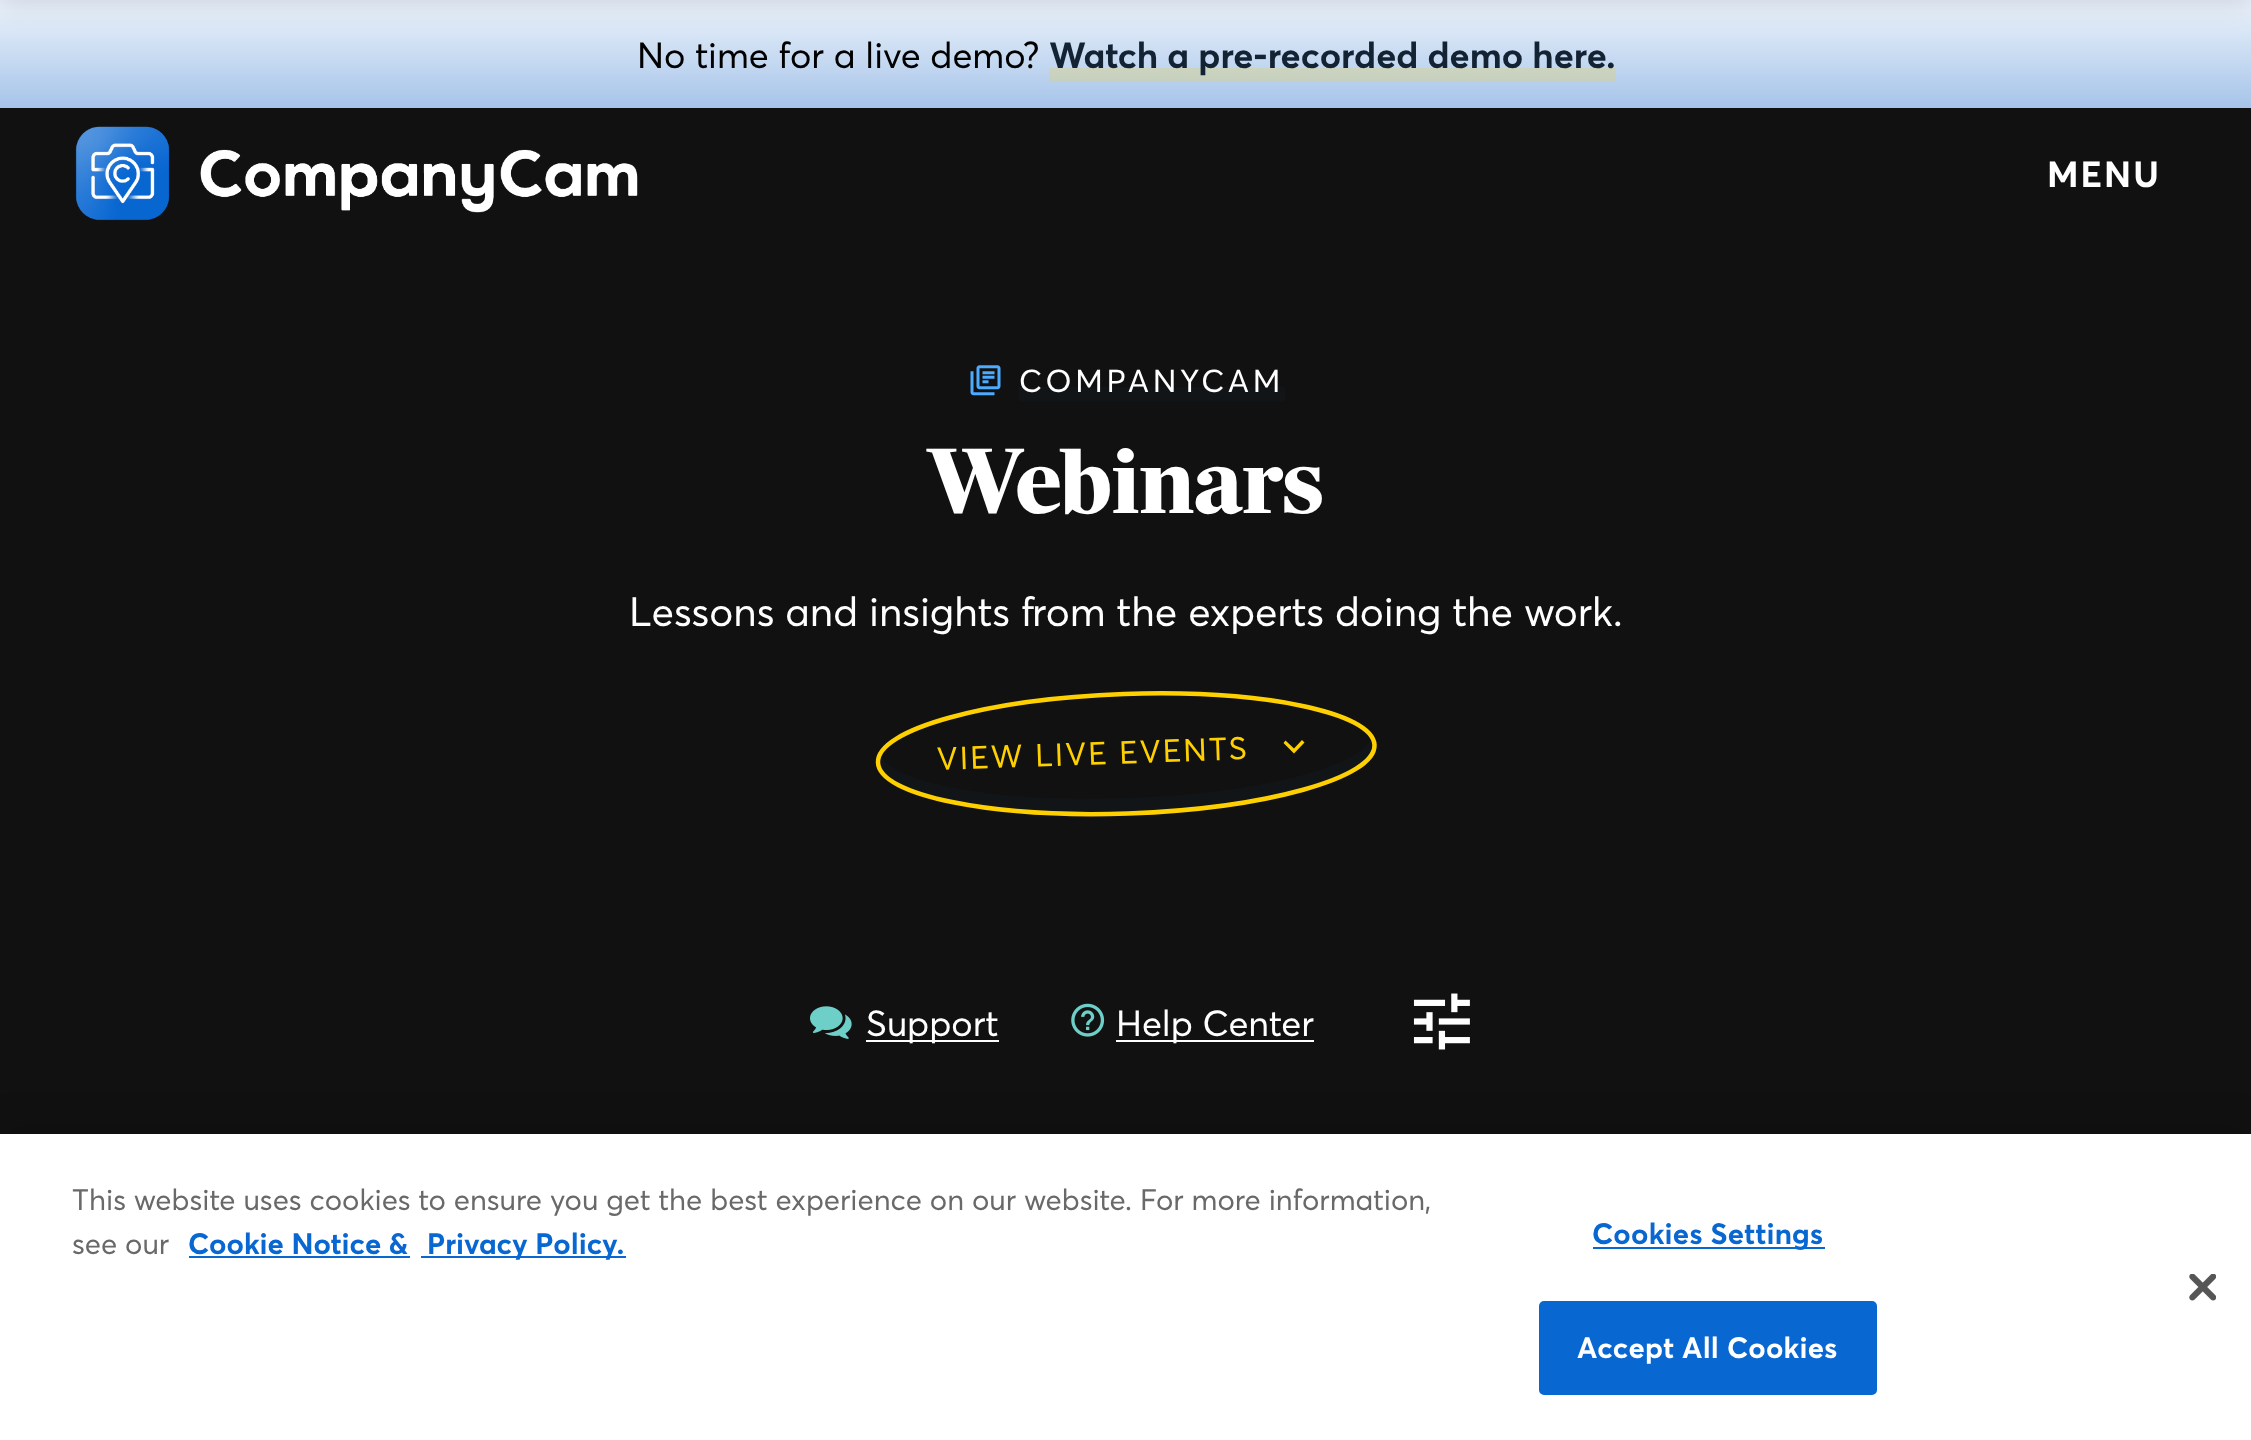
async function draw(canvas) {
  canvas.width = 2251;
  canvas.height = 1440;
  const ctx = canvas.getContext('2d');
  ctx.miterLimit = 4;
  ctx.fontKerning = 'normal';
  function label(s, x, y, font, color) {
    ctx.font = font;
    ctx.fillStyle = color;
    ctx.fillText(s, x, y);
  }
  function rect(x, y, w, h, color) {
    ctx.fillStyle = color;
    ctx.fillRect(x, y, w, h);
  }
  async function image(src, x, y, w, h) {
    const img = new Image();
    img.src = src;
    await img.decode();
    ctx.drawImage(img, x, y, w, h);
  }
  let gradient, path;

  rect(0, 0, 2251, 1440, '#fff');
  gradient = ctx.createLinearGradient(1126, 0, 1126, 108);
  gradient.addColorStop(0.1, '#e6effa');
  gradient.addColorStop(1, '#a6c4e9');
  ctx.fillStyle = gradient;
  ctx.fillRect(0, 0, 2251, 108);
  ctx.fillStyle = '#0000001a';
  ctx.filter = 'blur(13.5px)';
  ctx.beginPath();
  ctx.rect(0, -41, 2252, 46);
  ctx.fill();
  ctx.filter = 'none';
  gradient = ctx.createLinearGradient(1126, 0, 1126, 108);
  gradient.addColorStop(0.1, '#ebe9c8');
  gradient.addColorStop(1, '#b8c6ba');
  ctx.fillStyle = gradient;
  ctx.fillRect(1049, 68, 567, 13);
  label('No time for a live demo?', 637, 68, '36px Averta', '#000');
  label('Watch a pre-recorded demo here.', 1049, 68, 'bold 36px Averta', '#142334');
  rect(0, 108, 2251, 1026, '#111');
  await image('assets/img1.png', 75, 126, 563, 95);
  ctx.letterSpacing = '2px';
  label('MENU', 2047, 187, 'bold 36px Averta', '#fff');
  await image('assets/img2.png', 970, 365, 31, 31);
  rect(1019, 387, 266, 14, '#121518');
  ctx.letterSpacing = '3.75px';
  label('COMPANYCAM', 1019, 392, '31.5px Averta', '#fff');
  ctx.letterSpacing = '-0.25px';
  label('Webinars', 928, 513, 'bold 94.5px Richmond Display', '#fff');
  ctx.letterSpacing = '0px';
  label('Lessons and insights from the experts doing the work.', 629, 626, '40.5px Averta', '#fff');
  ctx.fillStyle = '#121518';
  path = new Path2D('M881 756C880 758 880 760 880 762C881 794 992 816 1128 811C1264 806 1373 777 1372 745C1372 743 1372 741 1371 739C1358 768 1255 794 1128 798C1001 803 895 784 881 756Z');
  ctx.fill(path);
  path = new Path2D('M1124 694C1261 689.5 1373 712 1374.5 745C1375.5 778 1265.5 808.5 1128 813.5C991 818 879 795.5 878 762.5C876.5 729.5 987 699 1124 694Z');
  ctx.strokeStyle = '#ffd000';
  ctx.lineWidth = 4.5;
  ctx.stroke(path);
  ctx.letterSpacing = '1.9px';
  ctx.font = '31.5px Averta';
  ctx.fillStyle = '#ffd000';
  ctx.save();
  ctx.translate(937, 770);
  ctx.rotate(-2 * Math.PI / 180);
  ctx.fillText('VIEW LIVE EVENTS', 0, 0);
  ctx.restore();
  path = new Path2D('M1302 740L1294 748.5L1285.5 740.5L1283.5 743L1294 753.5L1304.5 742.5Z');
  ctx.fill(path);
  await image('assets/img3.png', 810, 1006, 42, 33);
  rect(866, 1040, 133, 2, '#fff');
  ctx.letterSpacing = '0px';
  label('Support', 866, 1036, '36px Averta', '#fff');
  await image('assets/img4.png', 1071, 1003, 34, 34);
  rect(1116, 1040, 198, 2, '#fff');
  label('Help Center', 1116, 1036, '36px Averta', '#fff');
  await image('assets/img5.png', 1413, 993, 57, 57);
  ctx.fillStyle = '#00000033';
  ctx.filter = 'blur(20px)';
  ctx.beginPath();
  ctx.rect(0, 1134, 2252, 306);
  ctx.fill();
  ctx.filter = 'none';
  rect(0, 1134, 2251, 306, '#fff');
  label('This website uses cookies to ensure you get the best experience on our website. For more information,', 72, 1210, '29.25px Averta', '#696969');
  label('see our', 72, 1254, '29.25px Averta', '#696969');
  label('Cookie Notice &', 188, 1254, 'bold 29.25px Averta', '#0967d2');
  rect(189, 1256, 221, 2, '#0967d2');
  rect(421, 1256, 205, 2, '#0967d2');
  label('Privacy Policy.', 427, 1254, 'bold 29.25px Averta', '#0967d2');
  rect(1593, 1247, 232, 2, '#0967d2');
  ctx.letterSpacing = '0.25px';
  label('Cookies Settings', 1592, 1244, 'bold 29.25px Averta', '#0967d2');
  ctx.beginPath();
  ctx.roundRect(1540, 1302, 336, 92, 4);
  ctx.fill();
  ctx.strokeStyle = '#0967d2';
  ctx.lineWidth = 2;
  ctx.stroke();
  label('Accept All Cookies', 1577, 1358, 'bold 29.25px Averta', '#fff');
  await image('assets/img6.png', 2189, 1274, 27, 27);
}

draw(document.querySelector('canvas'));
